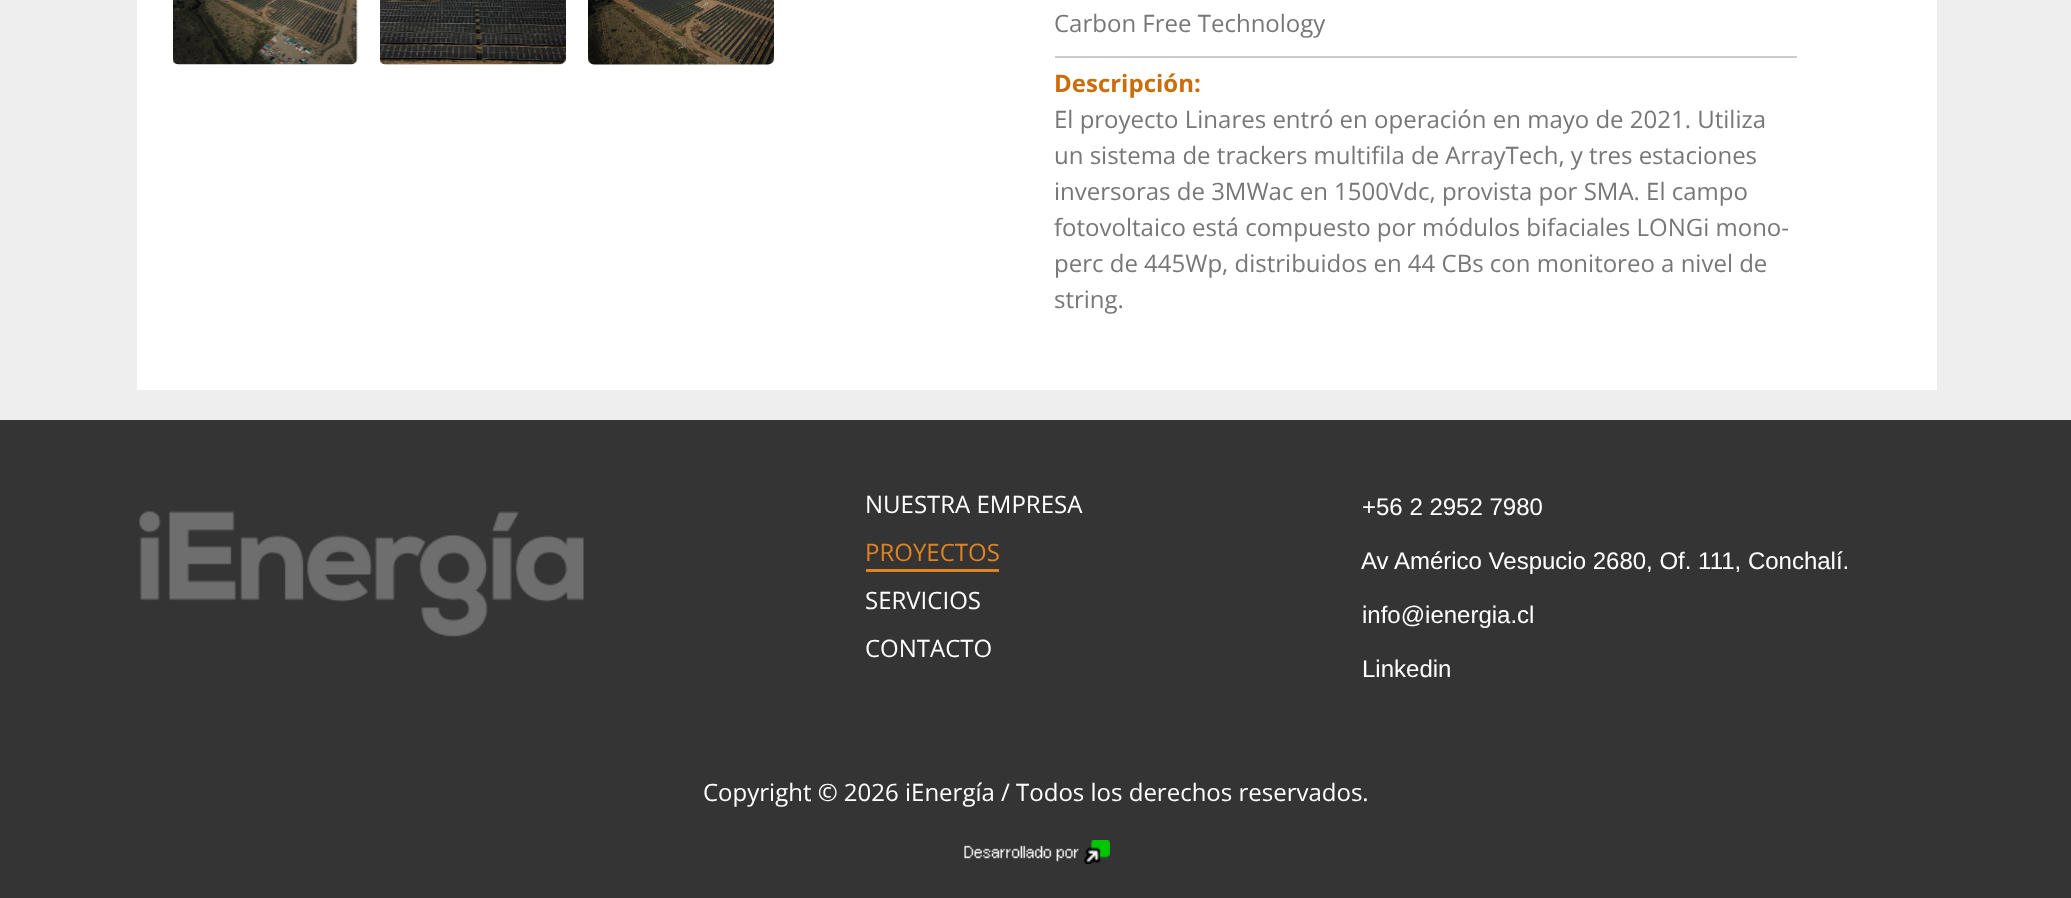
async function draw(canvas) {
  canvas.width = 2071;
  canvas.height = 898;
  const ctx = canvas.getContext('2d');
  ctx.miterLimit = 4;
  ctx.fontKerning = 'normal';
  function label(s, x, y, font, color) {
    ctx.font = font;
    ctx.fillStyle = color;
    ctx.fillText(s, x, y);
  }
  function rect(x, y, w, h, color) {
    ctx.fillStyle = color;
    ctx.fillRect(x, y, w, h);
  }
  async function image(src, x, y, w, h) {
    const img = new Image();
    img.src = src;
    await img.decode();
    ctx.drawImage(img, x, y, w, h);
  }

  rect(0, 0, 2071, 898, '#eee');
  rect(137, 0, 1800, 390, '#fff');
  await image('assets/img1.png', 173, 0, 185, 65);
  await image('assets/img2.png', 380, 0, 186, 65);
  await image('assets/img3.png', 588, 0, 186, 65);
  label('Carbon Free Technology', 1054, 32, '24px Open Sans', '#777');
  rect(1055, 56, 742, 2, '#ccc');
  label('Descripción:', 1054, 92, 'bold 24px Open Sans', '#ca6d0a');
  label('El proyecto Linares entró en operación en mayo de 2021. Utiliza', 1054, 128, '24px Open Sans', '#777');
  label('un sistema de trackers multifila de ArrayTech, y tres estaciones', 1054, 164, '24px Open Sans', '#777');
  label('inversoras de 3MWac en 1500Vdc, provista por SMA. El campo', 1054, 200, '24px Open Sans', '#777');
  label('fotovoltaico está compuesto por módulos bifaciales LONGi mono-', 1054, 236, '24px Open Sans', '#777');
  label('perc de 445Wp, distribuidos en 44 CBs con monitoreo a nivel de', 1054, 272, '24px Open Sans', '#777');
  label('string.', 1054, 308, '24px Open Sans', '#777');
  rect(0, 420, 2071, 478, '#343434');
  await image('assets/img4.png', 139, 511, 445, 126);
  label('NUESTRA EMPRESA', 865, 513, '24px Open Sans', '#fff');
  label('PROYECTOS', 865, 561, '24px Open Sans', '#e1831e');
  rect(866, 569, 133, 3, '#e1831e');
  label('SERVICIOS', 865, 609, '24px Open Sans', '#fff');
  label('CONTACTO', 865, 657, '24px Open Sans', '#fff');
  label('+56 2 2952 7980', 1362, 515, '24px Liberation Sans', '#fff');
  label('Av Américo Vespucio 2680, Of. 111, Conchalí.', 1361, 569, '24px Liberation Sans', '#fff');
  label('info@ienergia.cl', 1362, 623, '24px Liberation Sans', '#fff');
  label('Linkedin', 1362, 677, '24px Liberation Sans', '#fff');
  label('Copyright © 2026 iEnergía / Todos los derechos reservados.', 703, 801, '24px Open Sans', '#fff');
  await image('assets/img5.png', 964, 840, 146, 24);
}

draw(document.querySelector('canvas'));
